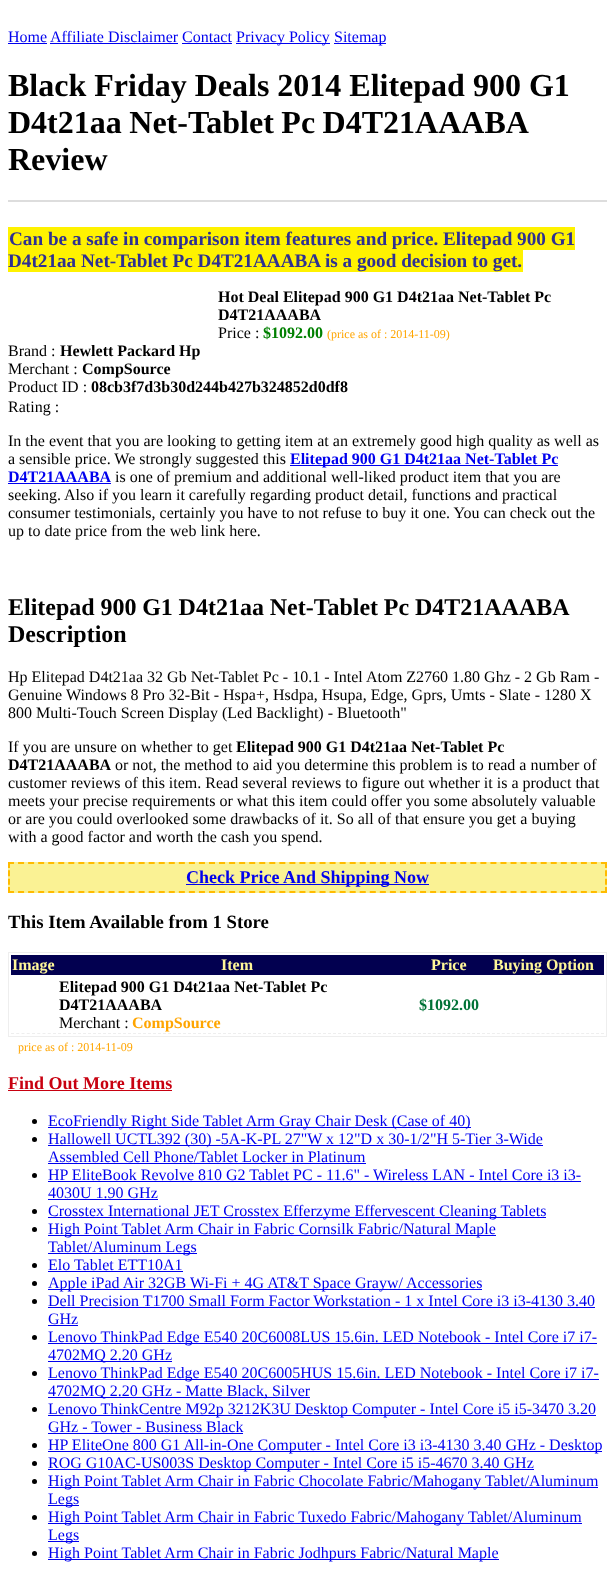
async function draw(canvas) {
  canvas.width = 615;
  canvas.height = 1570;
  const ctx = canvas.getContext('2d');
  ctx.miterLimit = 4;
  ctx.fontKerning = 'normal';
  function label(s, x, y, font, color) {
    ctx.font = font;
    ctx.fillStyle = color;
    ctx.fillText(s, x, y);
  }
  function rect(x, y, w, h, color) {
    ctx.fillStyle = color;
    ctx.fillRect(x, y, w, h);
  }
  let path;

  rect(0, 0, 615, 1570, '#fff');
  label('Home', 8, 42, '16px Liberation Serif', '#00e');
  rect(8, 43, 39, 1, '#00e');
  label('Affiliate Disclaimer Contact', 50, 42, '16px Liberation Serif', '#00e');
  rect(50, 43, 128, 1, '#00e');
  rect(236, 43, 94, 1, '#00e');
  label('Privacy Policy', 236, 42, '16px Liberation Serif', '#00e');
  rect(334, 43, 52, 1, '#00e');
  label('Sitemap', 334, 42, '16px Liberation Serif', '#00e');
  rect(182, 43, 50, 1, '#00e');
  label('Black Friday Deals 2014 Elitepad 900 G1', 8, 96, 'bold 32px Liberation Serif', '#000');
  ctx.wordSpacing = '-0.5px';
  label('D4t21aa Net-Tablet Pc D4T21AAABA', 8, 133, 'bold 32px Liberation Serif', '#000');
  ctx.wordSpacing = '0px';
  label('Review', 8, 170, 'bold 32px Liberation Serif', '#000');
  rect(8, 200, 599, 2, '#ddd');
  rect(8, 227, 567, 23, '#fff200');
  label('Can be a safe in comparison item features and price. Elitepad 900 G1', 9, 245, 'bold 19.2px Liberation Serif', '#2e3092');
  rect(8, 250, 515, 22, '#fff200');
  label('D4t21aa Net-Tablet Pc D4T21AAABA is a good decision to get.', 8, 267, 'bold 19.2px Liberation Serif', '#2e3092');
  label('Hot Deal Elitepad 900 G1 D4t21aa Net-Tablet Pc', 218, 302, 'bold 16px Liberation Serif', '#000');
  label('D4T21AAABA', 218, 320, 'bold 16px Liberation Serif', '#000');
  label('Price :', 218, 338, '16px Liberation Serif', '#000');
  label('$1092.00', 263, 338, 'bold 16px Liberation Serif', '#008000');
  label('(price as of : 2014-11-09)', 327, 338, '12px Liberation Serif', '#ffa500');
  label('Brand :', 8, 356, '16px Liberation Serif', '#000');
  label('Hewlett Packard Hp', 60, 356, 'bold 16px Liberation Serif', '#000');
  label('Merchant :', 8, 374, '16px Liberation Serif', '#000');
  label('CompSource', 82, 374, 'bold 16px Liberation Serif', '#000');
  label('Product ID :', 8, 392, '16px Liberation Serif', '#000');
  label('08cb3f7d3b30d244b427b324852d0df8', 91, 392, 'bold 16px Liberation Serif', '#000');
  label('Rating :', 8, 412, '16px Liberation Serif', '#000');
  label('In the event that you are looking to getting item at an extremely good high quality as well as', 8, 446, '16px Liberation Serif', '#000');
  label('a sensible price. We strongly suggested this', 8, 464, '16px Liberation Serif', '#000');
  rect(290, 465, 268, 1, '#00e');
  label('Elitepad 900 G1 D4t21aa Net-Tablet Pc', 290, 464, 'bold 16px Liberation Serif', '#00e');
  label('D4T21AAABA', 8, 482, 'bold 16px Liberation Serif', '#00e');
  rect(8, 483, 103, 1, '#00e');
  label('is one of premium and additional well-liked product item that you are', 115, 482, '16px Liberation Serif', '#000');
  label('seeking. Also if you learn it carefully regarding product detail, functions and practical', 8, 500, '16px Liberation Serif', '#000');
  label('consumer testimonials, certainly you have to not refuse to buy it one. You can check out the', 8, 518, '16px Liberation Serif', '#000');
  label('up to date price from the web link here.', 8, 536, '16px Liberation Serif', '#000');
  ctx.wordSpacing = '-0.25px';
  label('Elitepad 900 G1 D4t21aa Net-Tablet Pc D4T21AAABA', 8, 615, 'bold 24px Liberation Serif', '#000');
  ctx.wordSpacing = '0px';
  label('Description', 8, 642, 'bold 24px Liberation Serif', '#000');
  label('Hp Elitepad D4t21aa 32 Gb Net-Tablet Pc - 10.1 - Intel Atom Z2760 1.80 Ghz - 2 Gb Ram -', 8, 682, '16px Liberation Serif', '#000');
  label('Genuine Windows 8 Pro 32-Bit - Hspa+, Hsdpa, Hsupa, Edge, Gprs, Umts - Slate - 1280 X', 8, 700, '16px Liberation Serif', '#000');
  label('800 Multi-Touch Screen Display (Led Backlight) - Bluetooth"', 8, 718, '16px Liberation Serif', '#000');
  label('If you are unsure on whether to get', 8, 752, '16px Liberation Serif', '#000');
  label('Elitepad 900 G1 D4t21aa Net-Tablet Pc', 236, 752, 'bold 16px Liberation Serif', '#000');
  label('D4T21AAABA', 8, 770, 'bold 16px Liberation Serif', '#000');
  label('or not, the method to aid you determine this problem is to read a number of', 115, 770, '16px Liberation Serif', '#000');
  label('customer reviews of this item. Read several reviews to figure out whether it is a product that', 8, 788, '16px Liberation Serif', '#000');
  label('meets your precise requirements or what this item could offer you some absolutely valuable', 8, 806, '16px Liberation Serif', '#000');
  label('or are you could overlooked some drawbacks of it. So all of that ensure you get a buying', 8, 824, '16px Liberation Serif', '#000');
  label('with a good factor and worth the cash you spend.', 8, 842, '16px Liberation Serif', '#000');
  rect(8, 862, 599, 31, '#faf294');
  path = new Path2D('M8 863H607');
  ctx.strokeStyle = '#fb0';
  ctx.lineWidth = 2;
  ctx.setLineDash([6, 4.05]);
  ctx.stroke(path);
  path = new Path2D('M606 862V893');
  ctx.setLineDash([6, 2.33]);
  ctx.stroke(path);
  path = new Path2D('M8 892H607');
  ctx.setLineDash([6, 4.05]);
  ctx.stroke(path);
  path = new Path2D('M9 862V893');
  ctx.setLineDash([6, 2.33]);
  ctx.stroke(path);
  rect(186, 884, 243, 1, '#00e');
  label('Check Price And Shipping Now', 186, 883, 'bold 18px Liberation Serif', '#00e');
  label('This Item Available from 1 Store', 8, 928, 'bold 18.75px Liberation Serif', '#000');
  ctx.strokeStyle = '#eee';
  ctx.lineWidth = 1;
  ctx.setLineDash([]);
  ctx.strokeRect(8.5, 952.5, 598, 84);
  rect(11, 955, 593, 20, '#020050');
  label('Image', 12, 970, 'bold 16px Liberation Serif', '#fff799');
  label('Item', 221, 970, 'bold 16px Liberation Serif', '#fff799');
  label('Price', 431, 970, 'bold 16px Liberation Serif', '#fff799');
  label('Buying Option', 493, 970, 'bold 16px Liberation Serif', '#fff799');
  path = new Path2D('M58 1033.5H416');
  ctx.setLineDash([3, 2]);
  ctx.stroke(path);
  label('Elitepad 900 G1 D4t21aa Net-Tablet Pc', 59, 992, 'bold 16px Liberation Serif', '#000');
  label('D4T21AAABA', 59, 1010, 'bold 16px Liberation Serif', '#000');
  label('Merchant :', 59, 1028, '16px Liberation Serif', '#000');
  label('CompSource', 132, 1028, 'bold 16px Liberation Serif', '#ffa500');
  path = new Path2D('M418 1033.5H480');
  ctx.strokeStyle = '#ebebeb';
  ctx.setLineDash([3, 1.92]);
  ctx.stroke(path);
  label('$1092.00', 419, 1010, 'bold 16px Liberation Serif', '#007236');
  path = new Path2D('M11 1033.5H56');
  ctx.strokeStyle = '#eee';
  ctx.setLineDash([3, 2.25]);
  ctx.stroke(path);
  path = new Path2D('M482 1033.5H604');
  ctx.setLineDash([3, 1.96]);
  ctx.stroke(path);
  label('price as of : 2014-11-09', 18, 1051, '12px Liberation Serif', '#ffa500');
  label('Find Out More Items', 8, 1089, 'bold 18px Liberation Serif', '#c80010');
  rect(8, 1090, 164, 1, '#c80010');
  ctx.fillStyle = '#000';
  ctx.beginPath();
  ctx.arc(34.5, 1121.5, 2.5, 0, 2 * Math.PI);
  ctx.fill();
  rect(48, 1127, 423, 1, '#00e');
  label('EcoFriendly Right Side Tablet Arm Gray Chair Desk (Case of 40)', 48, 1126, '16px Liberation Serif', '#00e');
  ctx.fillStyle = '#000';
  ctx.beginPath();
  ctx.arc(34.5, 1139.5, 2.5, 0, 2 * Math.PI);
  ctx.fill();
  rect(48, 1145, 495, 1, '#00e');
  label('Hallowell UCTL392 (30) -5A-K-PL 27"W x 12"D x 30-1/2"H 5-Tier 3-Wide', 48, 1144, '16px Liberation Serif', '#00e');
  label('Assembled Cell Phone/Tablet Locker in Platinum', 48, 1162, '16px Liberation Serif', '#00e');
  rect(48, 1163, 318, 1, '#00e');
  ctx.fillStyle = '#000';
  ctx.beginPath();
  ctx.arc(34.5, 1175.5, 2.5, 0, 2 * Math.PI);
  ctx.fill();
  label('HP EliteBook Revolve 810 G2 Tablet PC - 11.6" - Wireless LAN - Intel Core i3 i3-', 48, 1180, '16px Liberation Serif', '#00e');
  rect(48, 1181, 533, 1, '#00e');
  label('4030U 1.90 GHz', 48, 1198, '16px Liberation Serif', '#00e');
  rect(48, 1199, 110, 1, '#00e');
  ctx.fillStyle = '#000';
  ctx.beginPath();
  ctx.arc(34.5, 1211.5, 2.5, 0, 2 * Math.PI);
  ctx.fill();
  rect(48, 1217, 498, 1, '#00e');
  label('Crosstex International JET Crosstex Efferzyme Effervescent Cleaning Tablets', 48, 1216, '16px Liberation Serif', '#00e');
  ctx.fillStyle = '#000';
  ctx.beginPath();
  ctx.arc(34.5, 1229.5, 2.5, 0, 2 * Math.PI);
  ctx.fill();
  rect(48, 1235, 448, 1, '#00e');
  label('High Point Tablet Arm Chair in Fabric Cornsilk Fabric/Natural Maple', 48, 1234, '16px Liberation Serif', '#00e');
  rect(48, 1253, 149, 1, '#00e');
  label('Tablet/Aluminum Legs', 48, 1252, '16px Liberation Serif', '#00e');
  ctx.fillStyle = '#000';
  ctx.beginPath();
  ctx.arc(34.5, 1265.5, 2.5, 0, 2 * Math.PI);
  ctx.fill();
  label('Elo Tablet ETT10A1', 48, 1270, '16px Liberation Serif', '#00e');
  rect(48, 1271, 135, 1, '#00e');
  ctx.fillStyle = '#000';
  ctx.beginPath();
  ctx.arc(34.5, 1283.5, 2.5, 0, 2 * Math.PI);
  ctx.fill();
  rect(48, 1289, 434, 1, '#00e');
  label('Apple iPad Air 32GB Wi-Fi + 4G AT&T Space Grayw/ Accessories', 48, 1288, '16px Liberation Serif', '#00e');
  ctx.fillStyle = '#000';
  ctx.beginPath();
  ctx.arc(34.5, 1301.5, 2.5, 0, 2 * Math.PI);
  ctx.fill();
  label('Dell Precision T1700 Small Form Factor Workstation - 1 x Intel Core i3 i3-4130 3.40', 48, 1306, '16px Liberation Serif', '#00e');
  rect(48, 1307, 547, 1, '#00e');
  label('GHz', 48, 1324, '16px Liberation Serif', '#00e');
  rect(48, 1325, 30, 1, '#00e');
  ctx.fillStyle = '#000';
  ctx.beginPath();
  ctx.arc(34.5, 1337.5, 2.5, 0, 2 * Math.PI);
  ctx.fill();
  rect(48, 1343, 549, 1, '#00e');
  label('Lenovo ThinkPad Edge E540 20C6008LUS 15.6in. LED Notebook - Intel Core i7 i7-', 48, 1342, '16px Liberation Serif', '#00e');
  rect(48, 1361, 124, 1, '#00e');
  label('4702MQ 2.20 GHz', 48, 1360, '16px Liberation Serif', '#00e');
  ctx.fillStyle = '#000';
  ctx.beginPath();
  ctx.arc(34.5, 1373.5, 2.5, 0, 2 * Math.PI);
  ctx.fill();
  rect(48, 1379, 551, 1, '#00e');
  label('Lenovo ThinkPad Edge E540 20C6005HUS 15.6in. LED Notebook - Intel Core i7 i7-', 48, 1378, '16px Liberation Serif', '#00e');
  rect(48, 1397, 262, 1, '#00e');
  label('4702MQ 2.20 GHz - Matte Black, Silver', 48, 1396, '16px Liberation Serif', '#00e');
  ctx.fillStyle = '#000';
  ctx.beginPath();
  ctx.arc(34.5, 1409.5, 2.5, 0, 2 * Math.PI);
  ctx.fill();
  rect(48, 1415, 548, 1, '#00e');
  label('Lenovo ThinkCentre M92p 3212K3U Desktop Computer - Intel Core i5 i5-3470 3.20', 48, 1414, '16px Liberation Serif', '#00e');
  label('GHz - Tower - Business Black', 48, 1432, '16px Liberation Serif', '#00e');
  rect(48, 1433, 195, 1, '#00e');
  ctx.fillStyle = '#000';
  ctx.beginPath();
  ctx.arc(34.5, 1445.5, 2.5, 0, 2 * Math.PI);
  ctx.fill();
  rect(48, 1451, 554, 1, '#00e');
  label('HP EliteOne 800 G1 All-in-One Computer - Intel Core i3 i3-4130 3.40 GHz - Desktop', 48, 1450, '16px Liberation Serif', '#00e');
  ctx.fillStyle = '#000';
  ctx.beginPath();
  ctx.arc(34.5, 1463.5, 2.5, 0, 2 * Math.PI);
  ctx.fill();
  rect(48, 1469, 486, 1, '#00e');
  label('ROG G10AC-US003S Desktop Computer - Intel Core i5 i5-4670 3.40 GHz', 48, 1468, '16px Liberation Serif', '#00e');
  ctx.fillStyle = '#000';
  ctx.beginPath();
  ctx.arc(34.5, 1481.5, 2.5, 0, 2 * Math.PI);
  ctx.fill();
  rect(48, 1487, 550, 1, '#00e');
  label('High Point Tablet Arm Chair in Fabric Chocolate Fabric/Mahogany Tablet/Aluminum', 48, 1486, '16px Liberation Serif', '#00e');
  rect(48, 1505, 31, 1, '#00e');
  label('Legs', 48, 1504, '16px Liberation Serif', '#00e');
  ctx.fillStyle = '#000';
  ctx.beginPath();
  ctx.arc(34.5, 1517.5, 2.5, 0, 2 * Math.PI);
  ctx.fill();
  rect(48, 1523, 534, 1, '#00e');
  label('High Point Tablet Arm Chair in Fabric Tuxedo Fabric/Mahogany Tablet/Aluminum', 48, 1522, '16px Liberation Serif', '#00e');
  rect(48, 1541, 31, 1, '#00e');
  label('Legs', 48, 1540, '16px Liberation Serif', '#00e');
  ctx.fillStyle = '#000';
  ctx.beginPath();
  ctx.arc(34.5, 1553.5, 2.5, 0, 2 * Math.PI);
  ctx.fill();
  rect(48, 1559, 451, 1, '#00e');
  label('High Point Tablet Arm Chair in Fabric Jodhpurs Fabric/Natural Maple', 48, 1558, '16px Liberation Serif', '#00e');
}

draw(document.querySelector('canvas'));
